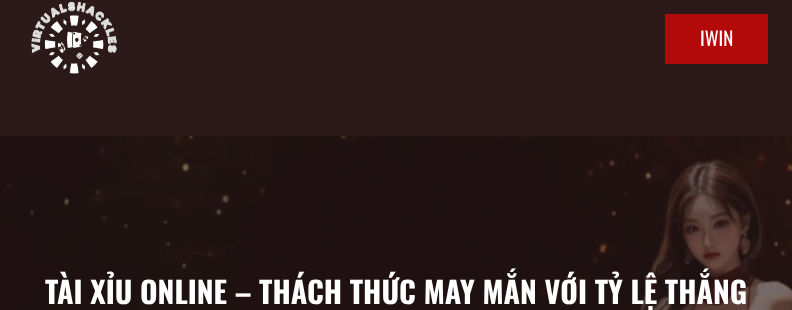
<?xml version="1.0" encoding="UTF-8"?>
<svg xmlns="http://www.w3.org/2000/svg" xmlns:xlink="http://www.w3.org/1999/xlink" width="792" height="310">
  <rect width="100%" height="100%" fill="#ffffff" />
  <rect width="792" height="136" fill="#2c1a1a" />
  <image x="31" y="1" width="86" height="73" xlink:href="image1.png" />
  <rect x="665" y="14" width="103" height="50" fill="#b30909" />
  <image x="0" y="136" width="792" height="174" xlink:href="image2.png" />
  <text x="700" y="46" style="font-family: Oswald; font-size: 19px; fill: #ffffff">IWIN</text>
  <text x="45" y="304" style="font-family: Oswald; font-size: 30px; font-weight: bold; fill: #ffffff">TÀI XỈU ONLINE – THÁCH THỨC MAY MẮN VỚI TỶ LỆ THẮNG</text>
</svg>
